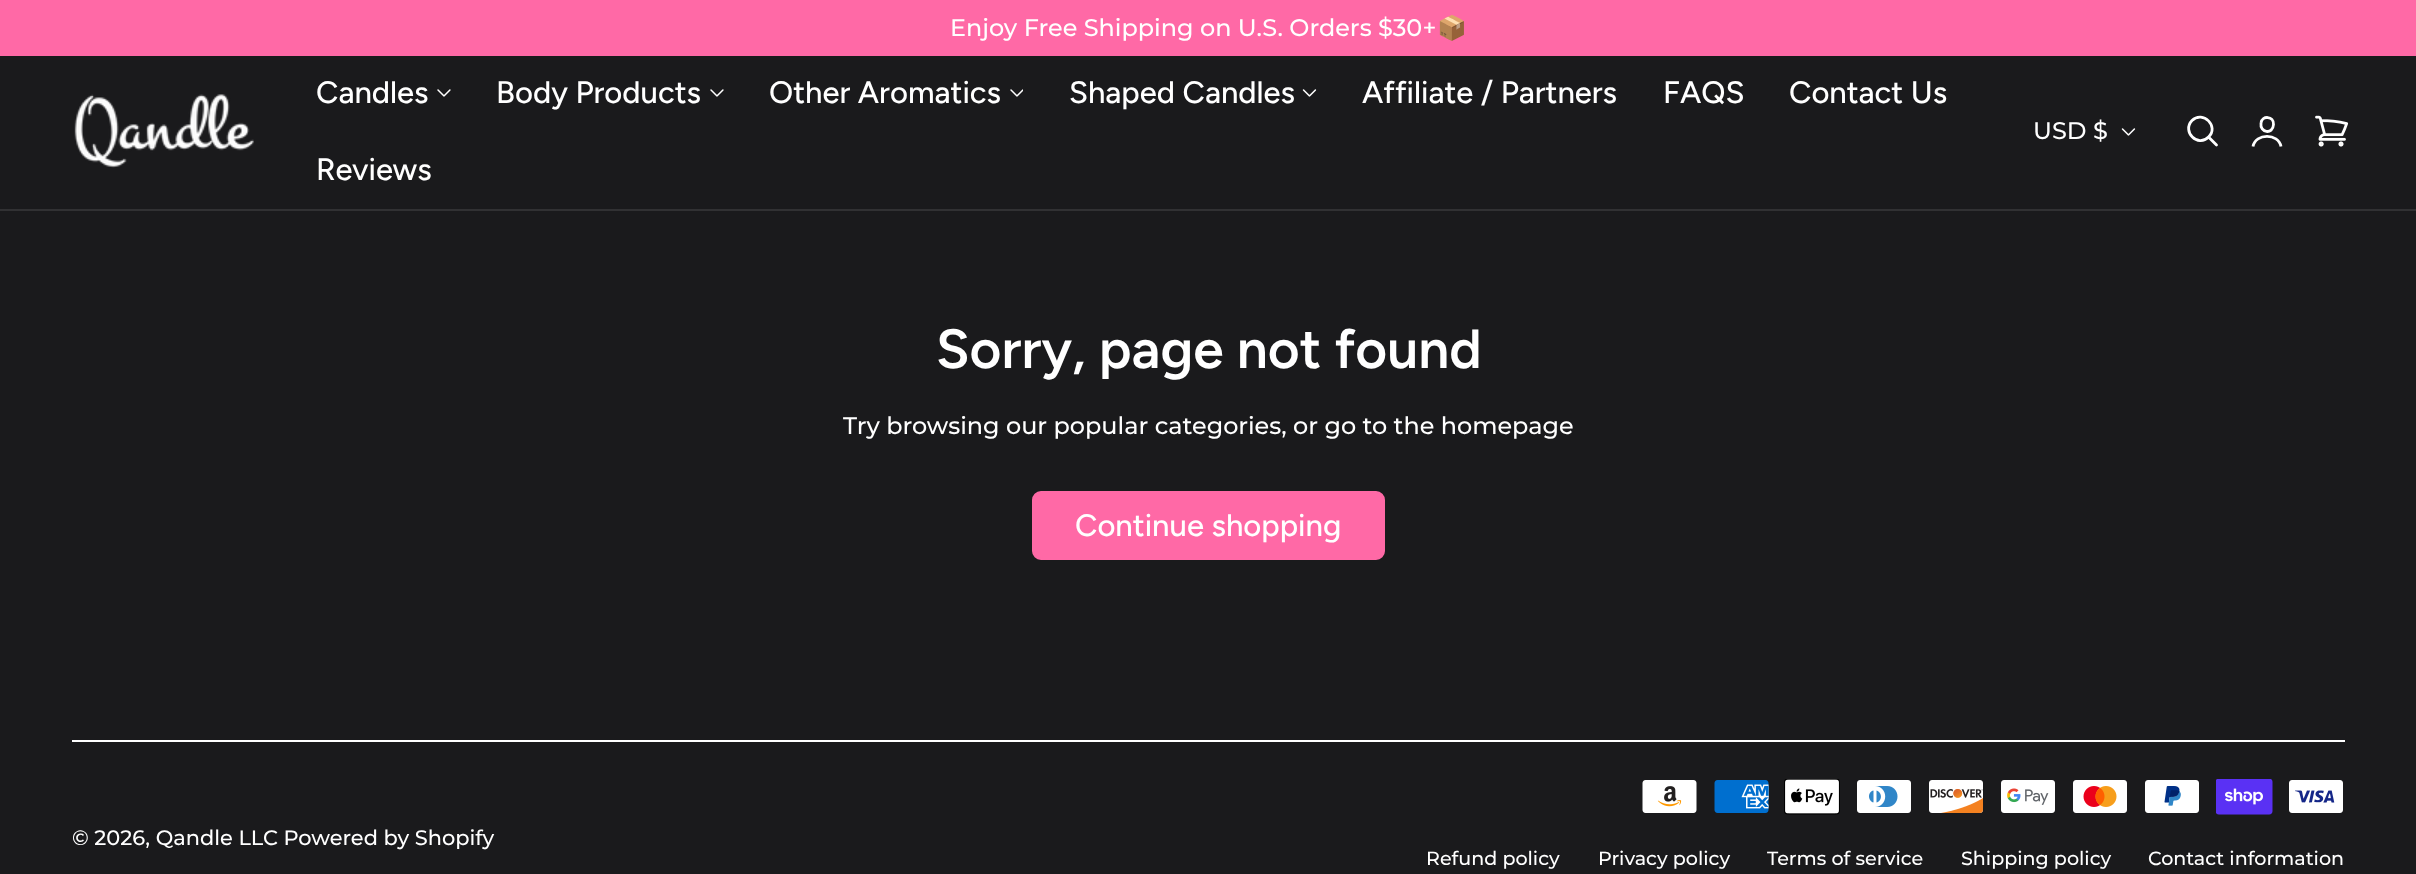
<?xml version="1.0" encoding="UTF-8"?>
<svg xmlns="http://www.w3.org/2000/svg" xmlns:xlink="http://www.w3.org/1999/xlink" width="2416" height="874">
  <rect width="100%" height="100%" fill="#1a1a1c" />
  <rect width="2416" height="56" fill="#ff69a6" />
  <rect y="209" width="2416" height="2" fill="#313133" />
  <image x="74" y="94" width="180" height="74" xlink:href="image1.png" />
  <image x="437" y="89" width="14" height="8" xlink:href="image2.png" />
  <image x="710" y="89" width="14" height="8" xlink:href="image2.png" />
  <image x="1010" y="89" width="13" height="8" xlink:href="image3.png" />
  <image x="1302" y="89" width="15" height="8" xlink:href="image4.png" />
  <image x="2121" y="128" width="15" height="8" xlink:href="image5.png" />
  <path d="M 2216.5 145 l -8 -8 m 0 0 c 11 -10.5 -5.5 -27 -16.5 -16.5 c -10.5 11 6 27.5 16.5 16.5 z" fill="none" stroke="#ffffff" stroke-width="2.8" stroke-linecap="round" stroke-linejoin="round" />
  <path d="M 2273.5 124.5 c -0.5 10.5 -14 8.5 -12.5 -1.5 c 1 -8 13 -7 12.5 1.5 z" fill="none" stroke="#ffffff" stroke-width="2.8" stroke-linecap="round" stroke-linejoin="round" />
  <path d="M 2253 146.5 c 2.5 -13.5 25.5 -13.5 28 0" fill="none" stroke="#ffffff" stroke-width="2.8" />
  <image x="2315" y="115" width="34" height="32" xlink:href="image6.png" />
  <rect x="1033" y="492" width="351" height="67" rx="8" fill="#ff69a6" stroke="#ff69a6" stroke-width="2" />
  <rect x="72" y="740" width="2273" height="2" fill="#ffffff" />
  <image x="1642" y="780" width="55" height="33" xlink:href="image7.png" />
  <image x="1714" y="780" width="55" height="33" xlink:href="image8.png" />
  <image x="1784" y="779" width="56" height="36" xlink:href="image9.png" />
  <image x="1857" y="780" width="54" height="33" xlink:href="image10.png" />
  <image x="1929" y="780" width="55" height="33" xlink:href="image11.png" />
  <image x="2001" y="780" width="54" height="33" xlink:href="image12.png" />
  <image x="2073" y="780" width="54" height="33" xlink:href="image13.png" />
  <image x="2145" y="780" width="54" height="33" xlink:href="image14.png" />
  <image x="2216" y="779" width="57" height="36" xlink:href="image15.png" />
  <image x="2289" y="780" width="54" height="33" xlink:href="image16.png" />
  <text x="950" y="36" style="font-family: Montserrat; font-size: 23.9px; font-weight: 500; fill: #ffffff">Enjoy Free Shipping on U.S. Orders $30+</text>
  <text x="1437" y="36" style="font-family: Noto Color Emoji; font-size: 23.9px; fill: #ffffff">📦</text>
  <text x="316" y="103" style="font-family: Figtree; font-size: 31px; font-weight: 500; fill: #ffffff">Candles</text>
  <text x="496" y="103" style="font-family: Figtree; font-size: 31px; font-weight: 500; fill: #ffffff">Body Products</text>
  <text x="769" y="103" style="font-family: Figtree; font-size: 31px; font-weight: 500; fill: #ffffff">Other Aromatics</text>
  <text x="1069" y="103" style="font-family: Figtree; font-size: 31px; font-weight: 500; fill: #ffffff">Shaped Candles</text>
  <text x="1362" y="103" style="font-family: Figtree; font-size: 31px; font-weight: 500; fill: #ffffff">Affiliate / Partners</text>
  <text x="1663" y="103" style="font-family: Figtree; font-size: 31px; font-weight: 500; fill: #ffffff">FAQS</text>
  <text x="1789" y="103" style="font-family: Figtree; font-size: 31px; font-weight: 500; fill: #ffffff">Contact Us</text>
  <text x="316" y="180" style="font-family: Figtree; font-size: 31px; font-weight: 500; fill: #ffffff">Reviews</text>
  <text x="2033" y="139" style="font-family: Montserrat; font-size: 23.9px; font-weight: 500; fill: #ffffff">USD $</text>
  <text x="936" y="368" style="font-family: Figtree; font-size: 55px; font-weight: 600; fill: #ffffff">Sorry, page not found</text>
  <text x="843" y="434" style="font-family: Montserrat; font-size: 23.9px; font-weight: 500; fill: #ffffff">Try browsing our popular categories, or go to the homepage</text>
  <text x="1075" y="536" style="font-family: Figtree; font-size: 31px; font-weight: 500; fill: #ffffff">Continue shopping</text>
  <text x="72" y="845" style="font-family: Montserrat; font-size: 20.9px; font-weight: 500; fill: #ffffff">© 2026, Qandle LLC Powered by Shopify</text>
  <text x="1426" y="865" style="font-family: Montserrat; font-size: 19.1px; font-weight: 500; fill: #ffffff">Refund policy</text>
  <text x="1598" y="865" style="font-family: Montserrat; font-size: 19.1px; font-weight: 500; fill: #ffffff">Privacy policy</text>
  <text x="1767" y="865" style="font-family: Montserrat; font-size: 19.1px; font-weight: 500; fill: #ffffff">Terms of service</text>
  <text x="1961" y="865" style="font-family: Montserrat; font-size: 19.1px; font-weight: 500; fill: #ffffff">Shipping policy</text>
  <text x="2148" y="865" style="font-family: Montserrat; font-size: 19.1px; font-weight: 500; fill: #ffffff">Contact information</text>
</svg>
